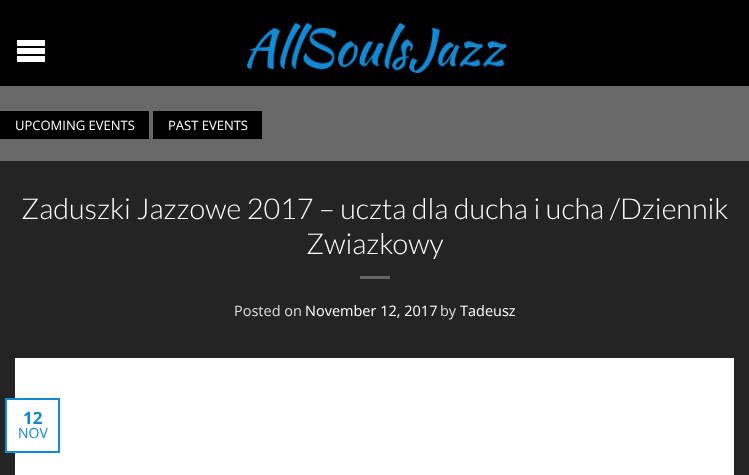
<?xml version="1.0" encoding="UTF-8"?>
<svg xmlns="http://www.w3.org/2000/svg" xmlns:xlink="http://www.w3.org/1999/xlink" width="749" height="475">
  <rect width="100%" height="100%" fill="#000000" />
  <image x="17" y="40" width="28" height="22" xlink:href="image1.png" />
  <image x="247" y="23" width="260" height="50" xlink:href="image2.png" />
  <rect y="161" width="749" height="314" fill="#242424" />
  <rect y="86" width="749" height="75" fill="#686868" />
  <rect y="111" width="149" height="28" fill="#000000" />
  <rect x="153" y="111" width="109" height="28" fill="#000000" />
  <rect x="360" y="276" width="30" height="3" fill="#666666" />
  <rect x="15" y="358" width="719" height="117" fill="#fefefe" />
  <rect x="7" y="400" width="8" height="51" fill="#ffffff" />
  <rect x="6" y="399" width="53" height="53" fill="none" stroke="#1389d3" stroke-width="2" />
  <text x="15" y="130" style="font-family: Open Sans; font-size: 13px; fill: #ffffff">UPCOMING EVENTS</text>
  <text x="168" y="130" style="font-family: Open Sans; font-size: 13px; fill: #ffffff">PAST EVENTS</text>
  <text x="21" y="219" style="font-family: Lato; font-size: 28.8px; font-weight: 300; fill: #ffffff">Zaduszki Jazzowe 2017 – uczta dla ducha i ucha /Dziennik</text>
  <text x="306" y="254" style="font-family: Lato; font-size: 28.8px; font-weight: 300; fill: #ffffff">Zwiazkowy</text>
  <text x="234" y="316" style="font-family: Open Sans; font-size: 14.5px; fill: #dddddd">Posted on</text>
  <text x="305" y="316" style="font-family: Open Sans; font-size: 14.5px; fill: #ffffff">November 12, 2017</text>
  <text x="440" y="316" style="font-family: Open Sans; font-size: 14.5px; fill: #dddddd">by</text>
  <text x="460" y="316" style="font-family: Open Sans; font-size: 14.5px; fill: #ffffff">Tadeusz</text>
  <text x="23" y="424" style="font-family: Open Sans; font-size: 17px; font-weight: bold; fill: #1389d3">12</text>
  <text x="18" y="438" style="font-family: Open Sans; font-size: 14px; fill: #1389d3">NOV</text>
</svg>
